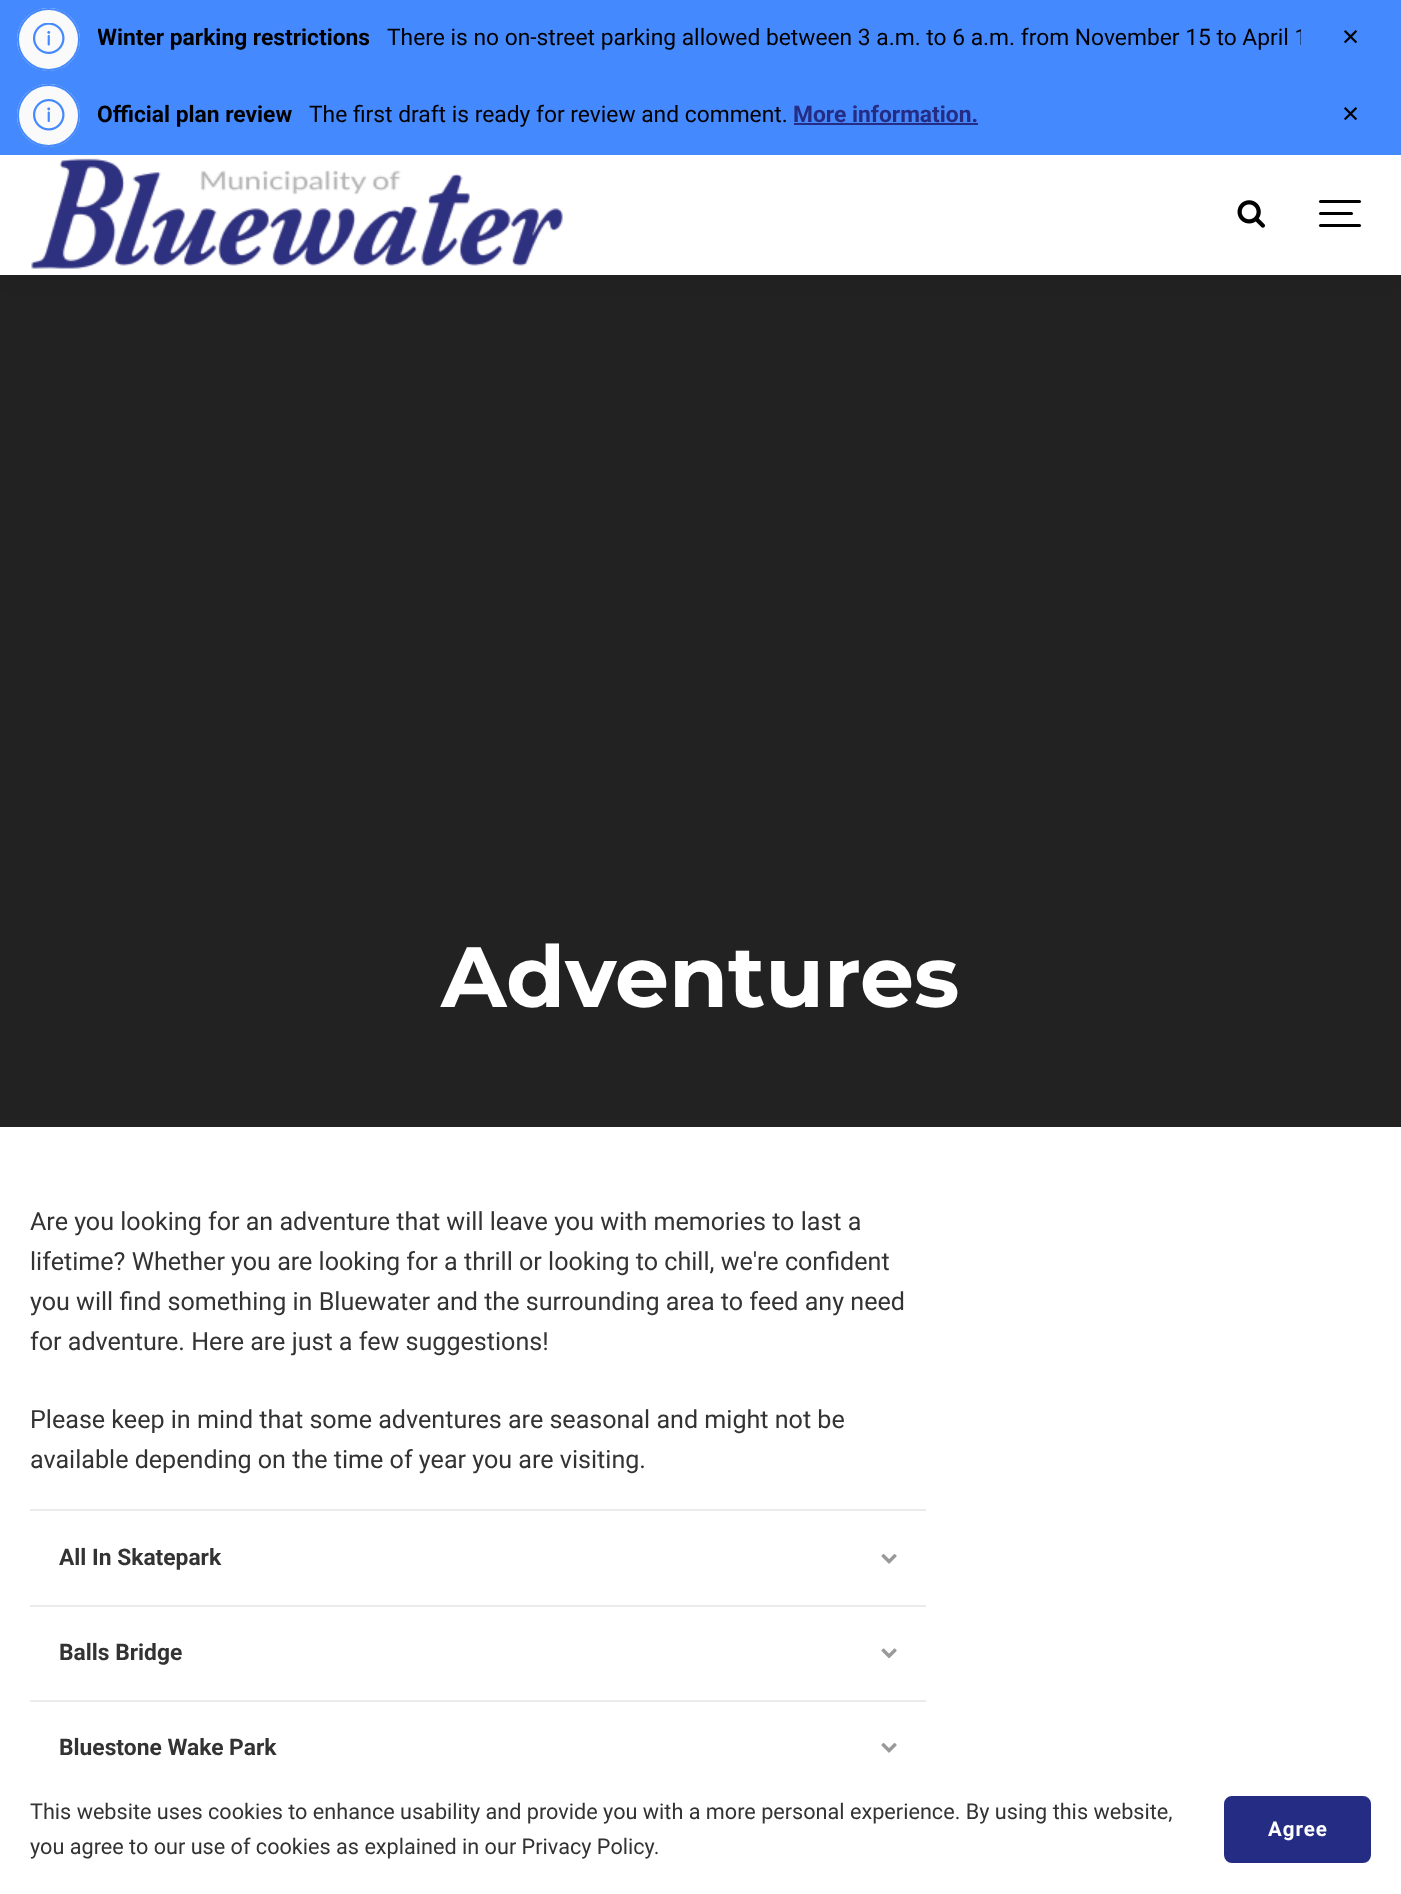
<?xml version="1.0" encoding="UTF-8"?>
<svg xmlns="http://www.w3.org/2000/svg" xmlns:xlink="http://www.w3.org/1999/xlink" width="1401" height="1894">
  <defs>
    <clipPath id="clip1"><rect x="98" y="23" width="273" height="31" /></clipPath>
    <clipPath id="clip2"><rect x="387" y="23" width="914" height="31" /></clipPath>
  </defs>
  <rect width="100%" height="100%" fill="#ffffff" />
  <rect y="275" width="1401" height="852" fill="#222222" />
  <rect width="1401" height="275" fill="#000000" fill-opacity="0.1" filter="blur(11px)" />
  <rect y="155" width="1401" height="120" fill="#ffffff" />
  <rect width="1401" height="155" fill="#4589ff" />
  <circle cx="48.5" cy="39.5" r="31.5" fill="#fafafa" />
  <image x="33" y="23" width="32" height="31" xlink:href="image1.png" />
  <circle cx="48.5" cy="39.5" r="30.5" fill="none" stroke="#4589ff" stroke-width="2" />
  <circle cx="48.5" cy="115.5" r="31.5" fill="#fafafa" />
  <image x="33" y="99" width="32" height="32" xlink:href="image2.png" />
  <circle cx="48.5" cy="115.5" r="30.5" fill="none" stroke="#4589ff" stroke-width="2" />
  <rect x="794" y="123" width="184" height="2" fill="#252c83" />
  <image x="31" y="158" width="532" height="111" xlink:href="image3.png" />
  <image x="1237" y="200" width="28" height="28" xlink:href="image4.png" />
  <rect x="1319" y="212" width="34" height="3" rx="1.5" fill="#000000" />
  <rect x="1319" y="200" width="42" height="3" rx="1.5" fill="#000000" />
  <rect x="1319" y="224" width="42" height="3" rx="1.5" fill="#000000" />
  <rect x="30" y="1509" width="896" height="2" fill="#ebebeb" />
  <rect x="30" y="1605" width="896" height="2" fill="#ebebeb" />
  <image x="881" y="1554" width="16" height="10" xlink:href="image5.png" />
  <rect x="30" y="1700" width="896" height="2" fill="#ebebeb" />
  <image x="881" y="1648" width="16" height="11" xlink:href="image6.png" />
  <image x="881" y="1743" width="16" height="10" xlink:href="image5.png" />
  <rect x="1225.5" y="1797.5" width="144" height="64" rx="6.5" fill="#252c83" stroke="#252c83" stroke-width="3" />
  <g clip-path="url(#clip1)">
    <text x="97" y="45" style="font-family: Roboto; font-size: 22.8px; font-weight: bold; fill: #000000">Winter parking restrictions</text>
  </g>
  <g clip-path="url(#clip2)">
    <text x="387" y="45" style="font-family: Roboto; font-size: 22.8px; fill: #000000">There is no on-street parking allowed between 3 a.m. to 6 a.m. from November 15 to April 1</text>
  </g>
  <text x="1341" y="45" style="font-family: DejaVu Sans; font-size: 22.8px; fill: #000000">✕</text>
  <text x="97" y="122" style="font-family: Roboto; font-size: 22.8px; font-weight: bold; fill: #000000">Official plan review</text>
  <text x="309" y="122" style="font-family: Roboto; font-size: 22.8px; fill: #000000">The first draft is ready for review and comment.</text>
  <text x="793" y="122" style="font-family: Roboto; font-size: 22.8px; font-weight: bold; fill: #252c83">More information.</text>
  <text x="1341" y="122" style="font-family: DejaVu Sans; font-size: 22.8px; fill: #000000">✕</text>
  <text x="441" y="1007" style="font-family: Montserrat; font-size: 85.5px; font-weight: bold; fill: #ffffff">Adventures</text>
  <text x="30" y="1230" style="font-family: Roboto; font-size: 25.1px; fill: #333333">Are you looking for an adventure that will leave you with memories to last a</text>
  <text x="30" y="1270" style="font-family: Roboto; font-size: 25.1px; fill: #333333">lifetime? Whether you are looking for a thrill or looking to chill, we're confident</text>
  <text x="30" y="1310" style="font-family: Roboto; font-size: 25.1px; fill: #333333">you will find something in Bluewater and the surrounding area to feed any need</text>
  <text x="30" y="1350" style="font-family: Roboto; font-size: 25.1px; fill: #333333">for adventure. Here are just a few suggestions!</text>
  <text x="30" y="1428" style="font-family: Roboto; font-size: 25.1px; fill: #333333">Please keep in mind that some adventures are seasonal and might not be</text>
  <text x="30" y="1468" style="font-family: Roboto; font-size: 25.1px; fill: #333333">available depending on the time of year you are visiting.</text>
  <text x="59" y="1565" style="font-family: Roboto; font-size: 22.8px; font-weight: bold; fill: #333333">All In Skatepark</text>
  <text x="59" y="1660" style="font-family: Roboto; font-size: 22.8px; font-weight: bold; fill: #333333">Balls Bridge</text>
  <text x="59" y="1755" style="font-family: Roboto; font-size: 22.8px; font-weight: bold; fill: #333333">Bluestone Wake Park</text>
  <text x="30" y="1819" style="font-family: Roboto; font-size: 21.65px; fill: #333333">This website uses cookies to enhance usability and provide you with a more personal experience. By using this website,</text>
  <text x="30" y="1854" style="font-family: Roboto; font-size: 21.65px; fill: #333333">you agree to our use of cookies as explained in our Privacy Policy.</text>
  <text x="1268" y="1836" style="font-family: Roboto; font-size: 20.5px; font-weight: bold; letter-spacing: 1px; fill: #ffffff">Agree</text>
</svg>
